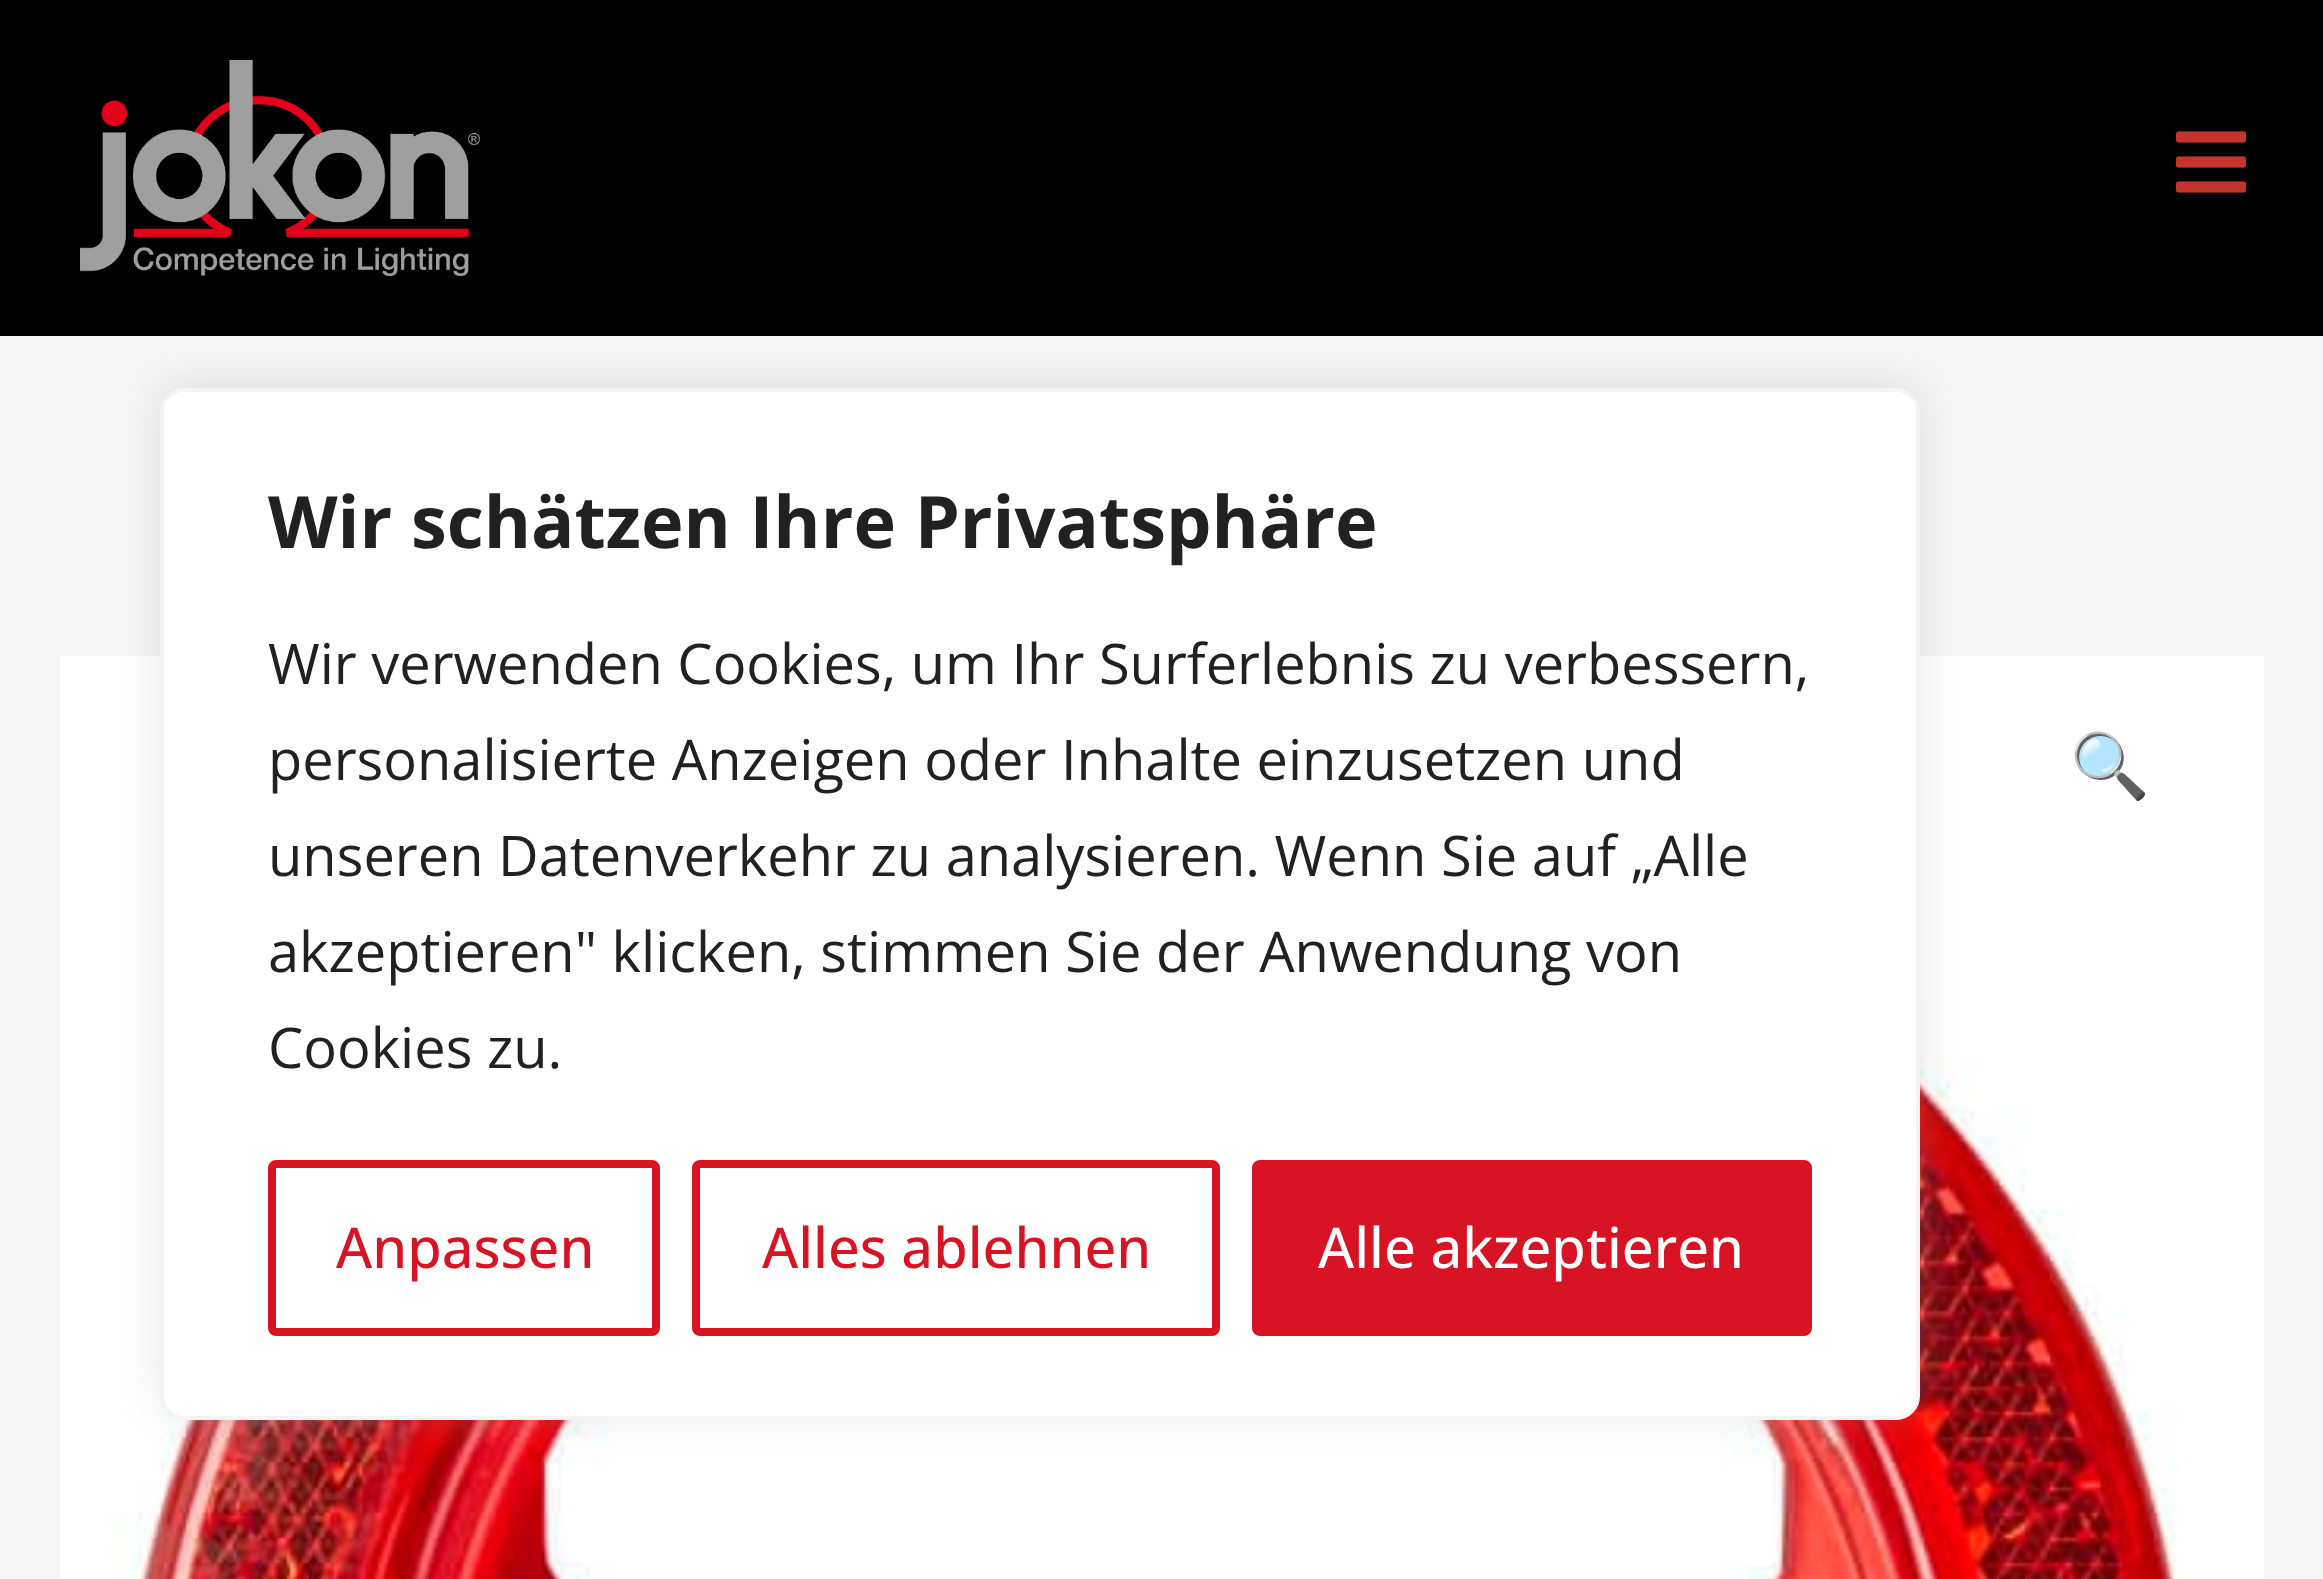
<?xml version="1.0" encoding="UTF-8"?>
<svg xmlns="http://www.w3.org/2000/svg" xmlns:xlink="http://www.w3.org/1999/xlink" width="2323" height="1579">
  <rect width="100%" height="100%" fill="#f5f5f5" />
  <rect width="2323" height="336" fill="#000000" />
  <image x="60" y="656" width="2204" height="923" xlink:href="image3.png" />
  <rect x="160" y="384" width="1760" height="1032" rx="24" fill="#acabab" fill-opacity="0.3" filter="blur(20px)" />
  <rect x="162" y="390" width="1756" height="1028" rx="22" fill="#ffffff" stroke="#f4f4f4" stroke-width="4" />
  <rect x="272" y="1164" width="384" height="168" rx="4" fill="none" stroke="#d81324" stroke-width="8" />
  <rect x="696" y="1164" width="520" height="168" rx="4" fill="none" stroke="#d81324" stroke-width="8" />
  <rect x="1256" y="1164" width="552" height="168" rx="4" fill="#d81324" stroke="#d81324" stroke-width="8" />
  <image x="80" y="60" width="400" height="216" xlink:href="image1.png" />
  <image x="2176" y="131" width="70" height="62" xlink:href="image2.png" />
  <text x="268" y="548" style="font-family: Open Sans; font-size: 72px; font-weight: bold; fill: #212121">Wir schätzen Ihre Privatsphäre</text>
  <text x="268" y="684" style="font-family: Open Sans; font-size: 56px; fill: #212121">Wir verwenden Cookies, um Ihr Surferlebnis zu verbessern,</text>
  <text x="268" y="780" style="font-family: Open Sans; font-size: 56px; fill: #212121">personalisierte Anzeigen oder Inhalte einzusetzen und</text>
  <text x="268" y="876" style="font-family: Open Sans; font-size: 56px; fill: #212121">unseren Datenverkehr zu analysieren. Wenn Sie auf „Alle</text>
  <text x="268" y="972" style="font-family: Open Sans; font-size: 56px; fill: #212121">akzeptieren" klicken, stimmen Sie der Anwendung von</text>
  <text x="268" y="1068" style="font-family: Open Sans; font-size: 56px; fill: #212121">Cookies zu.</text>
  <text x="336" y="1268" style="font-family: Open Sans; font-size: 56px; font-weight: 500; fill: #d81324">Anpassen</text>
  <text x="762" y="1268" style="font-family: Open Sans; font-size: 56px; font-weight: 500; fill: #d81324">Alles ablehnen</text>
  <text x="1318" y="1268" style="font-family: Open Sans; font-size: 56px; font-weight: 500; fill: #ffffff">Alle akzeptieren</text>
  <text x="2070" y="788" style="font-family: Noto Color Emoji; font-size: 64px; fill: #596277">🔍</text>
</svg>
